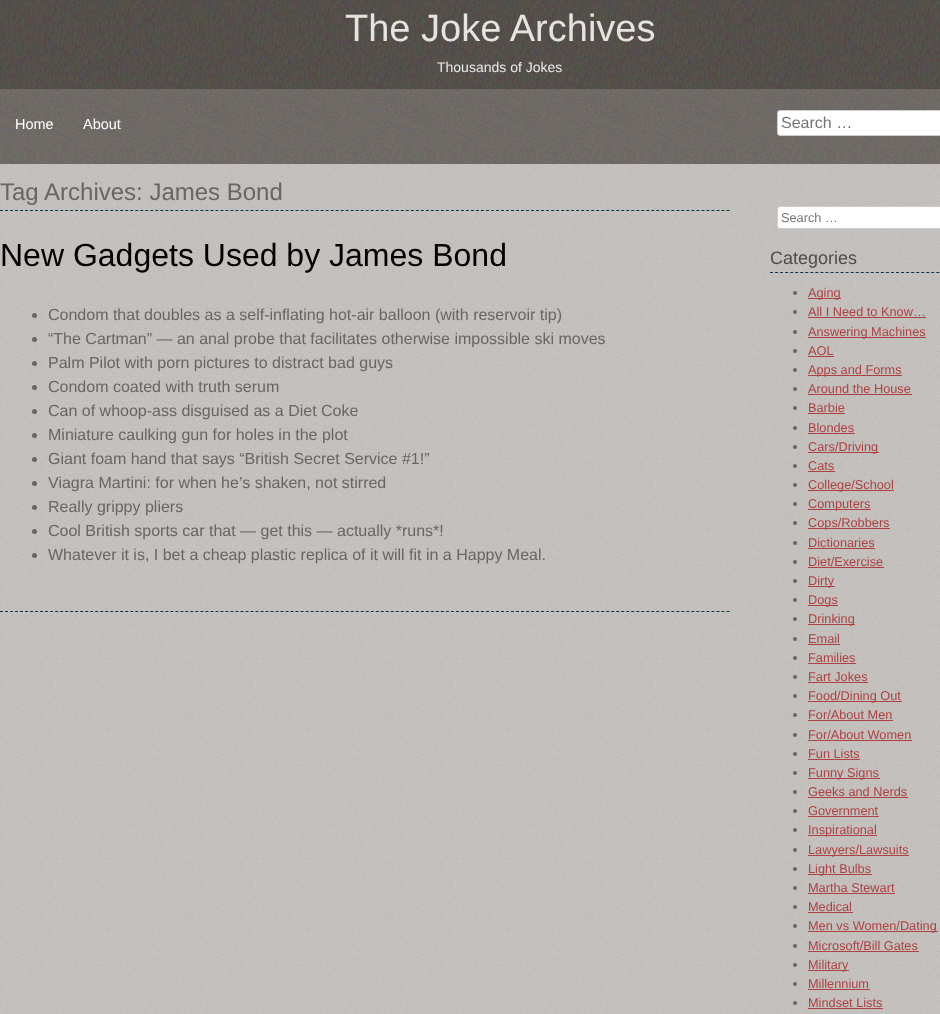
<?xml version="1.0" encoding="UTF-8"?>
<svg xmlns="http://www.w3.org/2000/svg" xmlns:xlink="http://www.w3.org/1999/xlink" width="940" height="1014">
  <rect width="100%" height="100%" fill="#e3ded9" />
  <image x="0" y="164" width="940" height="850" xlink:href="image1.png" />
  <image x="0" y="0" width="940" height="164" xlink:href="image2.png" />
  <rect x="777.5" y="110.5" width="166" height="25" rx="2.5" fill="#ffffff" stroke="#cccccc" />
  <path d="M 0 210.5 h 730" fill="none" stroke="#073648" stroke-dasharray="3 2.01" />
  <path d="M 0 611.5 h 730" fill="none" stroke="#073648" stroke-dasharray="3 2.01" />
  <circle cx="34.5" cy="315.5" r="2.5" fill="#666666" />
  <circle cx="34.5" cy="339.5" r="2.5" fill="#666666" />
  <circle cx="34.5" cy="363.5" r="2.5" fill="#666666" />
  <circle cx="34.5" cy="387.5" r="2.5" fill="#666666" />
  <circle cx="34.5" cy="411.5" r="2.5" fill="#666666" />
  <circle cx="34.5" cy="435.5" r="2.5" fill="#666666" />
  <circle cx="34.5" cy="459.5" r="2.5" fill="#666666" />
  <circle cx="34.5" cy="483.5" r="2.5" fill="#666666" />
  <circle cx="34.5" cy="507.5" r="2.5" fill="#666666" />
  <circle cx="34.5" cy="531.5" r="2.5" fill="#666666" />
  <circle cx="34.5" cy="555.5" r="2.5" fill="#666666" />
  <rect x="777.5" y="206.5" width="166" height="22" rx="2.5" fill="#ffffff" stroke="#cccccc" />
  <path d="M 770 272.5 h 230" fill="none" stroke="#073648" stroke-dasharray="3 2.04" />
  <circle cx="795" cy="293" r="2" fill="#666666" />
  <rect x="808" y="298" width="33" height="1" fill="#ac4242" />
  <circle cx="795" cy="312" r="2" fill="#666666" />
  <rect x="808" y="317" width="118" height="1" fill="#ac4242" />
  <circle cx="795" cy="332" r="2" fill="#666666" />
  <rect x="808" y="337" width="118" height="1" fill="#ac4242" />
  <circle cx="795" cy="351" r="2" fill="#666666" />
  <rect x="808" y="356" width="26" height="1" fill="#ac4242" />
  <circle cx="795" cy="370" r="2" fill="#666666" />
  <rect x="808" y="375" width="94" height="1" fill="#ac4242" />
  <circle cx="795" cy="389" r="2" fill="#666666" />
  <rect x="808" y="394" width="104" height="1" fill="#ac4242" />
  <circle cx="795" cy="408" r="2" fill="#666666" />
  <rect x="808" y="413" width="37" height="1" fill="#ac4242" />
  <circle cx="795" cy="428" r="2" fill="#666666" />
  <rect x="808" y="433" width="47" height="1" fill="#ac4242" />
  <circle cx="795" cy="447" r="2" fill="#666666" />
  <rect x="808" y="452" width="71" height="1" fill="#ac4242" />
  <circle cx="795" cy="466" r="2" fill="#666666" />
  <rect x="808" y="471" width="27" height="1" fill="#ac4242" />
  <circle cx="795" cy="485" r="2" fill="#666666" />
  <rect x="808" y="490" width="86" height="1" fill="#ac4242" />
  <circle cx="795" cy="504" r="2" fill="#666666" />
  <rect x="808" y="509" width="63" height="1" fill="#ac4242" />
  <circle cx="795" cy="523" r="2" fill="#666666" />
  <rect x="808" y="528" width="82" height="1" fill="#ac4242" />
  <circle cx="795" cy="543" r="2" fill="#666666" />
  <rect x="808" y="548" width="67" height="1" fill="#ac4242" />
  <circle cx="795" cy="562" r="2" fill="#666666" />
  <rect x="808" y="567" width="76" height="1" fill="#ac4242" />
  <circle cx="795" cy="581" r="2" fill="#666666" />
  <rect x="808" y="586" width="27" height="1" fill="#ac4242" />
  <circle cx="795" cy="600" r="2" fill="#666666" />
  <rect x="808" y="605" width="30" height="1" fill="#ac4242" />
  <circle cx="795" cy="619" r="2" fill="#666666" />
  <rect x="808" y="624" width="47" height="1" fill="#ac4242" />
  <circle cx="795" cy="639" r="2" fill="#666666" />
  <rect x="808" y="644" width="32" height="1" fill="#ac4242" />
  <circle cx="795" cy="658" r="2" fill="#666666" />
  <rect x="808" y="663" width="48" height="1" fill="#ac4242" />
  <circle cx="795" cy="677" r="2" fill="#666666" />
  <rect x="808" y="682" width="60" height="1" fill="#ac4242" />
  <circle cx="795" cy="696" r="2" fill="#666666" />
  <rect x="808" y="701" width="94" height="1" fill="#ac4242" />
  <circle cx="795" cy="715" r="2" fill="#666666" />
  <rect x="808" y="720" width="85" height="1" fill="#ac4242" />
  <circle cx="795" cy="735" r="2" fill="#666666" />
  <rect x="808" y="740" width="104" height="1" fill="#ac4242" />
  <circle cx="795" cy="754" r="2" fill="#666666" />
  <rect x="808" y="759" width="52" height="1" fill="#ac4242" />
  <circle cx="795" cy="773" r="2" fill="#666666" />
  <rect x="808" y="778" width="72" height="1" fill="#ac4242" />
  <circle cx="795" cy="792" r="2" fill="#666666" />
  <rect x="808" y="797" width="100" height="1" fill="#ac4242" />
  <circle cx="795" cy="811" r="2" fill="#666666" />
  <rect x="808" y="816" width="71" height="1" fill="#ac4242" />
  <circle cx="795" cy="830" r="2" fill="#666666" />
  <rect x="808" y="835" width="69" height="1" fill="#ac4242" />
  <circle cx="795" cy="850" r="2" fill="#666666" />
  <rect x="808" y="855" width="101" height="1" fill="#ac4242" />
  <circle cx="795" cy="869" r="2" fill="#666666" />
  <rect x="808" y="874" width="64" height="1" fill="#ac4242" />
  <circle cx="795" cy="888" r="2" fill="#666666" />
  <rect x="808" y="893" width="87" height="1" fill="#ac4242" />
  <circle cx="795" cy="907" r="2" fill="#666666" />
  <rect x="808" y="912" width="45" height="1" fill="#ac4242" />
  <circle cx="795" cy="926" r="2" fill="#666666" />
  <rect x="808" y="931" width="130" height="1" fill="#ac4242" />
  <circle cx="795" cy="946" r="2" fill="#666666" />
  <rect x="808" y="951" width="111" height="1" fill="#ac4242" />
  <circle cx="795" cy="965" r="2" fill="#666666" />
  <rect x="808" y="970" width="41" height="1" fill="#ac4242" />
  <circle cx="795" cy="984" r="2" fill="#666666" />
  <rect x="808" y="989" width="62" height="1" fill="#ac4242" />
  <circle cx="795" cy="1003" r="2" fill="#666666" />
  <rect x="808" y="1008" width="75" height="1" fill="#ac4242" />
  <text x="345" y="41" style="font-family: Liberation Sans; font-size: 38px; fill: #e6e4e1">The Joke Archives</text>
  <text x="437" y="72" style="font-family: Liberation Sans; font-size: 14px; fill: #ebebeb">Thousands of Jokes</text>
  <text x="15" y="129" style="font-family: Liberation Sans; font-size: 14.5px; fill: #ffffff">Home</text>
  <text x="83" y="129" style="font-family: Liberation Sans; font-size: 14.5px; fill: #ffffff">About</text>
  <text x="781" y="128" style="font-family: Liberation Sans; font-size: 16px; fill: #757575">Search …</text>
  <text x="0" y="200" style="font-family: Liberation Sans; font-size: 24px; fill: #666666">Tag Archives: James Bond</text>
  <text x="0" y="266" style="font-family: Liberation Sans; font-size: 32px; fill: #000000">New Gadgets Used by James Bond</text>
  <text x="48" y="320" style="font-family: Liberation Sans; font-size: 16px; fill: #666666">Condom that doubles as a self-inflating hot-air balloon (with reservoir tip)</text>
  <text x="48" y="344" style="font-family: Liberation Sans; font-size: 16px; fill: #666666">“The Cartman” — an anal probe that facilitates otherwise impossible ski moves</text>
  <text x="48" y="368" style="font-family: Liberation Sans; font-size: 16px; fill: #666666">Palm Pilot with porn pictures to distract bad guys</text>
  <text x="48" y="392" style="font-family: Liberation Sans; font-size: 16px; fill: #666666">Condom coated with truth serum</text>
  <text x="48" y="416" style="font-family: Liberation Sans; font-size: 16px; fill: #666666">Can of whoop-ass disguised as a Diet Coke</text>
  <text x="48" y="440" style="font-family: Liberation Sans; font-size: 16px; fill: #666666">Miniature caulking gun for holes in the plot</text>
  <text x="48" y="464" style="font-family: Liberation Sans; font-size: 16px; fill: #666666">Giant foam hand that says “British Secret Service #1!”</text>
  <text x="48" y="488" style="font-family: Liberation Sans; font-size: 16px; fill: #666666">Viagra Martini: for when he’s shaken, not stirred</text>
  <text x="48" y="512" style="font-family: Liberation Sans; font-size: 16px; fill: #666666">Really grippy pliers</text>
  <text x="48" y="536" style="font-family: Liberation Sans; font-size: 16px; fill: #666666">Cool British sports car that — get this — actually *runs*!</text>
  <text x="48" y="560" style="font-family: Liberation Sans; font-size: 16px; fill: #666666">Whatever it is, I bet a cheap plastic replica of it will fit in a Happy Meal.</text>
  <text x="781" y="222" style="font-family: Liberation Sans; font-size: 12.75px; fill: #757575">Search …</text>
  <text x="770" y="264" style="font-family: Liberation Sans; font-size: 18px; fill: #4f4d4a">Categories</text>
  <text x="808" y="297" style="font-family: Liberation Sans; font-size: 12.75px; fill: #ac4242">Aging</text>
  <text x="808" y="316" style="font-family: Liberation Sans; font-size: 12.75px; fill: #ac4242">All I Need to Know…</text>
  <text x="808" y="336" style="font-family: Liberation Sans; font-size: 12.75px; fill: #ac4242">Answering Machines</text>
  <text x="808" y="355" style="font-family: Liberation Sans; font-size: 12.75px; fill: #ac4242">AOL</text>
  <text x="808" y="374" style="font-family: Liberation Sans; font-size: 12.75px; fill: #ac4242">Apps and Forms</text>
  <text x="808" y="393" style="font-family: Liberation Sans; font-size: 12.75px; fill: #ac4242">Around the House</text>
  <text x="808" y="412" style="font-family: Liberation Sans; font-size: 12.75px; fill: #ac4242">Barbie</text>
  <text x="808" y="432" style="font-family: Liberation Sans; font-size: 12.75px; fill: #ac4242">Blondes</text>
  <text x="808" y="451" style="font-family: Liberation Sans; font-size: 12.75px; fill: #ac4242">Cars/Driving</text>
  <text x="808" y="470" style="font-family: Liberation Sans; font-size: 12.75px; fill: #ac4242">Cats</text>
  <text x="808" y="489" style="font-family: Liberation Sans; font-size: 12.75px; fill: #ac4242">College/School</text>
  <text x="808" y="508" style="font-family: Liberation Sans; font-size: 12.75px; fill: #ac4242">Computers</text>
  <text x="808" y="527" style="font-family: Liberation Sans; font-size: 12.75px; fill: #ac4242">Cops/Robbers</text>
  <text x="808" y="547" style="font-family: Liberation Sans; font-size: 12.75px; fill: #ac4242">Dictionaries</text>
  <text x="808" y="566" style="font-family: Liberation Sans; font-size: 12.75px; fill: #ac4242">Diet/Exercise</text>
  <text x="808" y="585" style="font-family: Liberation Sans; font-size: 12.75px; fill: #ac4242">Dirty</text>
  <text x="808" y="604" style="font-family: Liberation Sans; font-size: 12.75px; fill: #ac4242">Dogs</text>
  <text x="808" y="623" style="font-family: Liberation Sans; font-size: 12.75px; fill: #ac4242">Drinking</text>
  <text x="808" y="643" style="font-family: Liberation Sans; font-size: 12.75px; fill: #ac4242">Email</text>
  <text x="808" y="662" style="font-family: Liberation Sans; font-size: 12.75px; fill: #ac4242">Families</text>
  <text x="808" y="681" style="font-family: Liberation Sans; font-size: 12.75px; fill: #ac4242">Fart Jokes</text>
  <text x="808" y="700" style="font-family: Liberation Sans; font-size: 12.75px; fill: #ac4242">Food/Dining Out</text>
  <text x="808" y="719" style="font-family: Liberation Sans; font-size: 12.75px; fill: #ac4242">For/About Men</text>
  <text x="808" y="739" style="font-family: Liberation Sans; font-size: 12.75px; fill: #ac4242">For/About Women</text>
  <text x="808" y="758" style="font-family: Liberation Sans; font-size: 12.75px; fill: #ac4242">Fun Lists</text>
  <text x="808" y="777" style="font-family: Liberation Sans; font-size: 12.75px; fill: #ac4242">Funny Signs</text>
  <text x="808" y="796" style="font-family: Liberation Sans; font-size: 12.75px; fill: #ac4242">Geeks and Nerds</text>
  <text x="808" y="815" style="font-family: Liberation Sans; font-size: 12.75px; fill: #ac4242">Government</text>
  <text x="808" y="834" style="font-family: Liberation Sans; font-size: 12.75px; fill: #ac4242">Inspirational</text>
  <text x="808" y="854" style="font-family: Liberation Sans; font-size: 12.75px; fill: #ac4242">Lawyers/Lawsuits</text>
  <text x="808" y="873" style="font-family: Liberation Sans; font-size: 12.75px; fill: #ac4242">Light Bulbs</text>
  <text x="808" y="892" style="font-family: Liberation Sans; font-size: 12.75px; fill: #ac4242">Martha Stewart</text>
  <text x="808" y="911" style="font-family: Liberation Sans; font-size: 12.75px; fill: #ac4242">Medical</text>
  <text x="808" y="930" style="font-family: Liberation Sans; font-size: 12.75px; fill: #ac4242">Men vs Women/Dating</text>
  <text x="808" y="950" style="font-family: Liberation Sans; font-size: 12.75px; fill: #ac4242">Microsoft/Bill Gates</text>
  <text x="808" y="969" style="font-family: Liberation Sans; font-size: 12.75px; fill: #ac4242">Military</text>
  <text x="808" y="988" style="font-family: Liberation Sans; font-size: 12.75px; fill: #ac4242">Millennium</text>
  <text x="808" y="1007" style="font-family: Liberation Sans; font-size: 12.75px; fill: #ac4242">Mindset Lists</text>
</svg>
